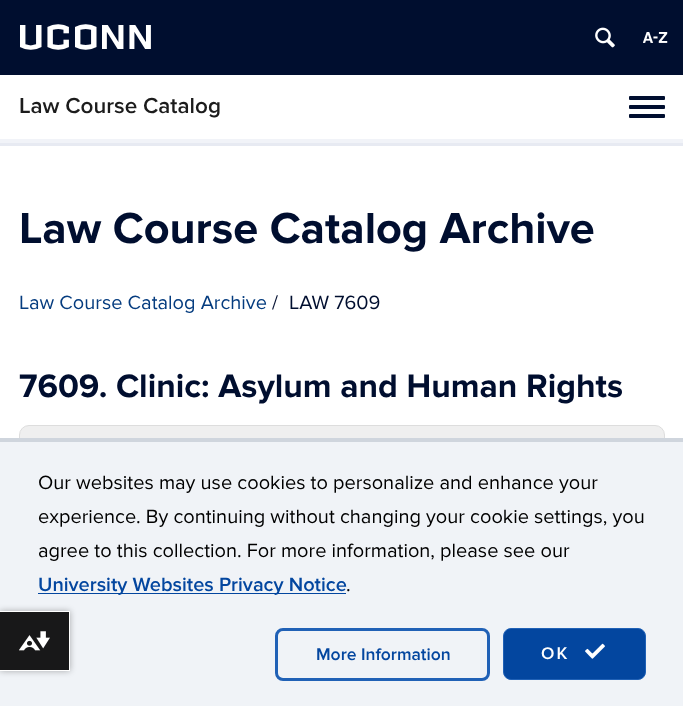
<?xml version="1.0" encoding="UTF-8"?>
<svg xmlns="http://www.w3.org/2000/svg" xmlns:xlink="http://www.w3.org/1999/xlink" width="683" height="706">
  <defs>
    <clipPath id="clip1"><path d="M 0 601 h 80 v 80 h -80 z m 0 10 h 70 v 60 h -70 z" clip-rule="evenodd" /></clipPath>
  </defs>
  <rect width="100%" height="100%" fill="#ffffff" />
  <rect width="683" height="75" fill="#000e2f" />
  <image x="595" y="27" width="20" height="21" xlink:href="image1.png" />
  <image x="643" y="32" width="25" height="11" xlink:href="image2.png" />
  <rect x="629" y="96" width="36" height="4" rx="1" fill="#000e2f" />
  <rect x="629" y="105" width="36" height="4" rx="1" fill="#000e2f" />
  <rect x="629" y="114" width="36" height="4" rx="1" fill="#000e2f" />
  <rect y="139" width="683" height="4" fill="#f1f3f8" />
  <rect y="143" width="683" height="3" fill="#e7eaf2" />
  <rect x="19.5" y="425.5" width="645" height="79" rx="9.5" fill="#efefef" stroke="#dddddd" />
  <rect y="442" width="683" height="264" fill="#f0f3f7" />
  <rect y="438" width="683" height="4" fill="#cfd5dd" />
  <rect x="38" y="593" width="308" height="1" fill="#03469f" />
  <rect x="276.5" y="629.5" width="212" height="50" rx="6.5" fill="none" stroke="#2061b6" stroke-width="3" />
  <rect x="503.5" y="628.5" width="142" height="51" rx="7.5" fill="#03469f" stroke="#2061b6" />
  <image x="585" y="643" width="20" height="16" xlink:href="image3.png" />
  <g clip-path="url(#clip1)">
    <rect y="611" width="70" height="60" fill="#000000" fill-opacity="0.3" filter="blur(3px)" />
  </g>
  <rect y="612" width="69" height="58" fill="#000000" fill-opacity="0.9" />
  <rect y="611" width="70" height="1" fill="#ffffff" />
  <rect x="69" y="611" width="1" height="60" fill="#ffffff" />
  <rect y="670" width="70" height="1" fill="#ffffff" />
  <image x="19" y="631" width="31" height="20" xlink:href="image4.png" />
  <text x="20" y="49" style="font-family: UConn; font-size: 40px; letter-spacing: 3.75px; fill: #ffffff">UCONN</text>
  <text x="19" y="113" style="font-family: Proxima Nova; font-size: 22.5px; font-weight: 600; fill: #1c1c1c">Law Course Catalog</text>
  <text x="19" y="243" style="font-family: Proxima Nova; font-size: 45px; font-weight: bold; fill: #000e2f">Law Course Catalog Archive</text>
  <text x="19" y="309" style="font-family: Proxima Nova; font-size: 20px; fill: #053c7f">Law Course Catalog Archive</text>
  <text x="272" y="309" style="font-family: Proxima Nova; font-size: 20px; fill: #000e2f">/</text>
  <text x="289" y="309" style="font-family: Proxima Nova; font-size: 20px; fill: #000e2f">LAW 7609</text>
  <text x="19" y="397" style="font-family: Proxima Nova; font-size: 33.75px; font-weight: bold; fill: #000e2f">7609. Clinic: Asylum and Human Rights</text>
  <text x="38" y="489" style="font-family: Proxima Nova; font-size: 20px; fill: #000000">Our websites may use cookies to personalize and enhance your</text>
  <text x="38" y="523" style="font-family: Proxima Nova; font-size: 20px; fill: #000000">experience. By continuing without changing your cookie settings, you</text>
  <text x="38" y="557" style="font-family: Proxima Nova; font-size: 20px; fill: #000000">agree to this collection. For more information, please see our</text>
  <text x="38" y="591" style="font-family: Proxima Nova; font-size: 20px; font-weight: 600; fill: #03469f">University Websites Privacy Notice</text>
  <text x="346" y="591" style="font-family: Proxima Nova; font-size: 20px; fill: #000000">.</text>
  <text x="316" y="660" style="font-family: Proxima Nova; font-size: 17.5px; font-weight: 600; fill: #03469f">More Information</text>
  <text x="541" y="659" style="font-family: Proxima Nova; font-size: 17.5px; font-weight: 600; letter-spacing: 2px; fill: #ffffff">OK</text>
</svg>
